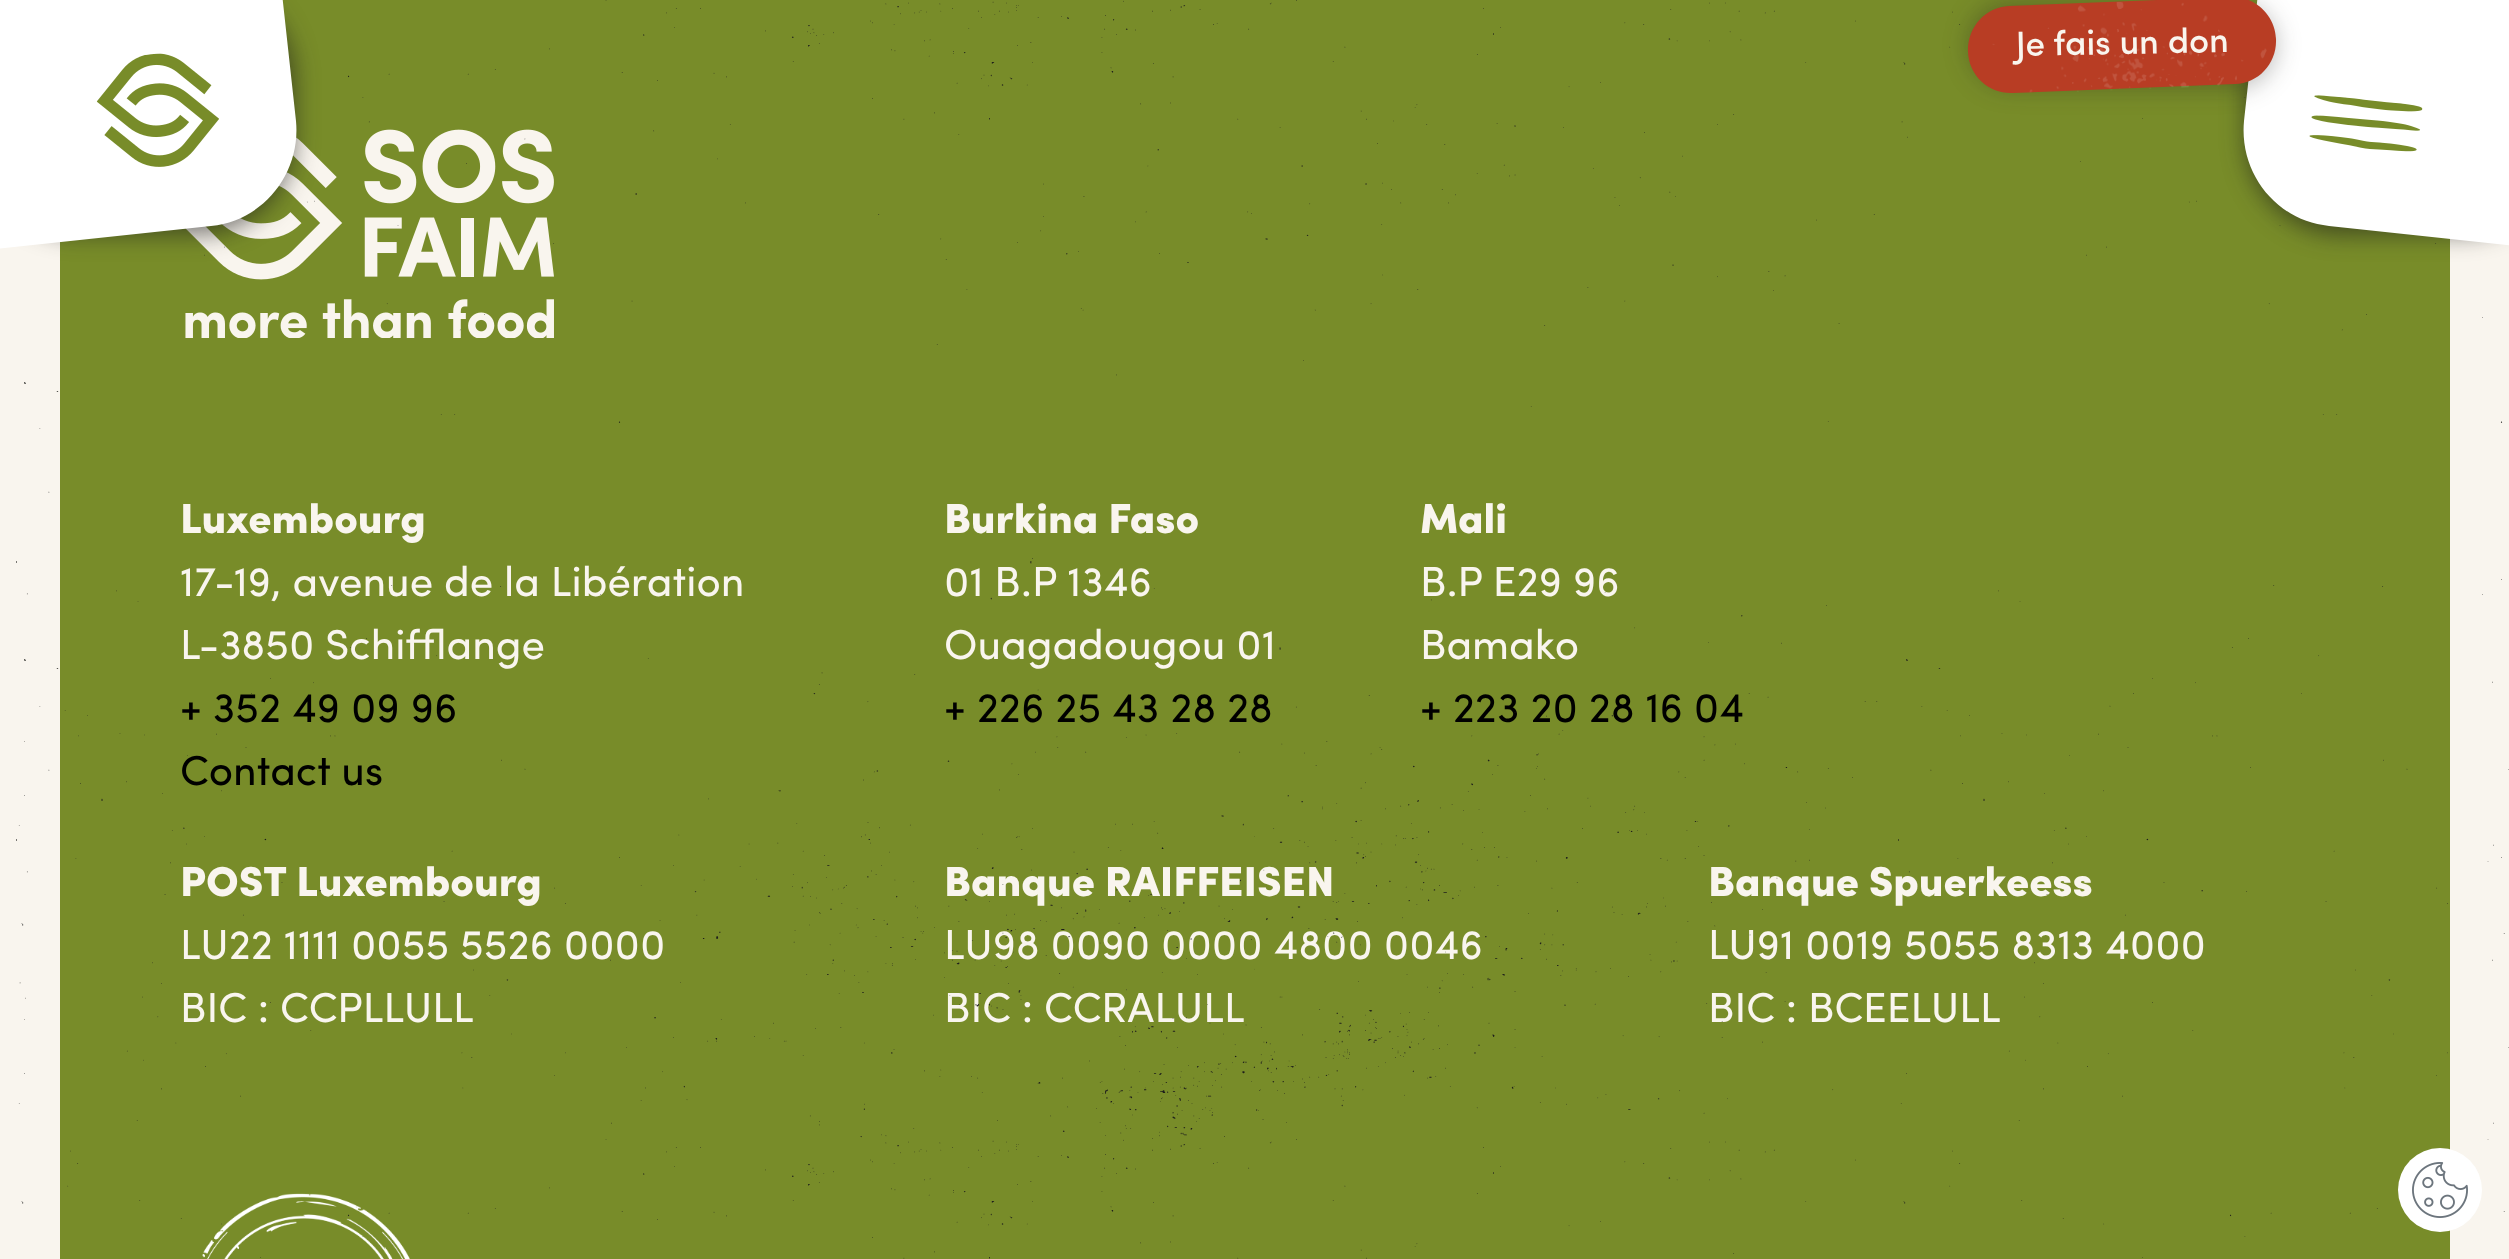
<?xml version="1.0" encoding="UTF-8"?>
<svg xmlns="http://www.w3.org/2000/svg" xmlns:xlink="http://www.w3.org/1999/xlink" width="2509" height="1259">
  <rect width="100%" height="100%" fill="#f9f5ee" />
  <image x="16" y="317" width="2493" height="682" xlink:href="image1.png" />
  <rect x="60" width="2390" height="1259" fill="#788c29" />
  <image x="185" y="129" width="369" height="209" xlink:href="image6.png" />
  <image x="202" y="1193" width="208" height="66" xlink:href="image7.png" />
  <text x="180" y="533" style="font-family: Sofia; font-size: 42px; font-weight: 900; fill: #f9f5ee">Luxembourg</text>
  <text x="180" y="596" style="font-family: Sofia; font-size: 42px; fill: #f9f5ee">17-19, avenue de la Libération</text>
  <text x="180" y="659" style="font-family: Sofia; font-size: 42px; fill: #f9f5ee">L-3850 Schifflange</text>
  <text x="180" y="722" style="font-family: Sofia; font-size: 42px; fill: #000000">+ 352 49 09 96</text>
  <text x="180" y="785" style="font-family: Sofia; font-size: 42px; fill: #000000">Contact us</text>
  <text x="944" y="533" style="font-family: Sofia; font-size: 42px; font-weight: 900; fill: #f9f5ee">Burkina Faso</text>
  <text x="944" y="596" style="font-family: Sofia; font-size: 42px; fill: #f9f5ee">01 B.P 1346</text>
  <text x="944" y="659" style="font-family: Sofia; font-size: 42px; fill: #f9f5ee">Ouagadougou 01</text>
  <text x="944" y="722" style="font-family: Sofia; font-size: 42px; fill: #000000">+ 226 25 43 28 28</text>
  <text x="1420" y="533" style="font-family: Sofia; font-size: 42px; font-weight: 900; fill: #f9f5ee">Mali</text>
  <text x="1420" y="596" style="font-family: Sofia; font-size: 42px; fill: #f9f5ee">B.P E29 96</text>
  <text x="1420" y="659" style="font-family: Sofia; font-size: 42px; fill: #f9f5ee">Bamako</text>
  <text x="1420" y="722" style="font-family: Sofia; font-size: 42px; fill: #000000">+ 223 20 28 16 04</text>
  <text x="180" y="896" style="font-family: Sofia; font-size: 42px; font-weight: 900; fill: #f9f5ee">POST Luxembourg</text>
  <text x="180" y="959" style="font-family: Sofia; font-size: 42px; fill: #f9f5ee">LU22 1111 0055 5526 0000</text>
  <text x="180" y="1022" style="font-family: Sofia; font-size: 42px; fill: #f9f5ee">BIC : CCPLLULL</text>
  <text x="944" y="896" style="font-family: Sofia; font-size: 42px; font-weight: 900; fill: #f9f5ee">Banque RAIFFEISEN</text>
  <text x="944" y="959" style="font-family: Sofia; font-size: 42px; fill: #f9f5ee">LU98 0090 0000 4800 0046</text>
  <text x="944" y="1022" style="font-family: Sofia; font-size: 42px; fill: #f9f5ee">BIC : CCRALULL</text>
  <text x="1708" y="896" style="font-family: Sofia; font-size: 42px; font-weight: 900; fill: #f9f5ee">Banque Spuerkeess</text>
  <text x="1708" y="959" style="font-family: Sofia; font-size: 42px; fill: #f9f5ee">LU91 0019 5055 8313 4000</text>
  <text x="1708" y="1022" style="font-family: Sofia; font-size: 42px; fill: #f9f5ee">BIC : BCEELULL</text>
  <image x="16" y="0" width="2493" height="1259" xlink:href="image5.png" />
  <rect x="-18" y="-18" width="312" height="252" rx="96" fill="#1d1d1b" fill-opacity="0.6" filter="blur(12px)" />
  <path d="M -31 -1 l 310 -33 l 17 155 c 5 53 -33 100 -85 105 l -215 23 z" fill="#ffffff" />
  <image x="96" y="53" width="123" height="114" xlink:href="image2.png" />
  <rect x="2246" y="-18" width="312" height="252" rx="96" fill="#1d1d1b" fill-opacity="0.6" filter="blur(12px)" />
  <path d="M 2261 -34 l 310 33 l -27 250 l -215 -23 c -52 -5 -90 -52 -85 -105 z" fill="#ffffff" />
  <image x="2309" y="95" width="114" height="57" xlink:href="image4.png" />
  <rect x="1968" y="2" width="308" height="86" rx="43" fill="#1d1d1b" fill-opacity="0.3" filter="blur(12px)" />
  <path d="M 2009 6 l 222 -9 c 24 -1 44 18 45 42 c 1 24 -17 44 -41 45 l -222 9 c -24 1 -44 -17 -45 -41 c -1 -24 17 -45 41 -46 z" fill="#b83d24" />
  <image x="1992" y="2" width="284" height="91" xlink:href="image3.png" />
  <text x="2016" y="56" transform="rotate(-1.1 2016 56)" style="font-family: Sofia; font-size: 35px; font-weight: 500; fill: #f9f5ee">Je fais un don</text>
  <circle cx="2440" cy="1190" r="42" fill="#ffffff" />
  <image x="2412" y="1162" width="56" height="56" xlink:href="image8.png" />
</svg>
